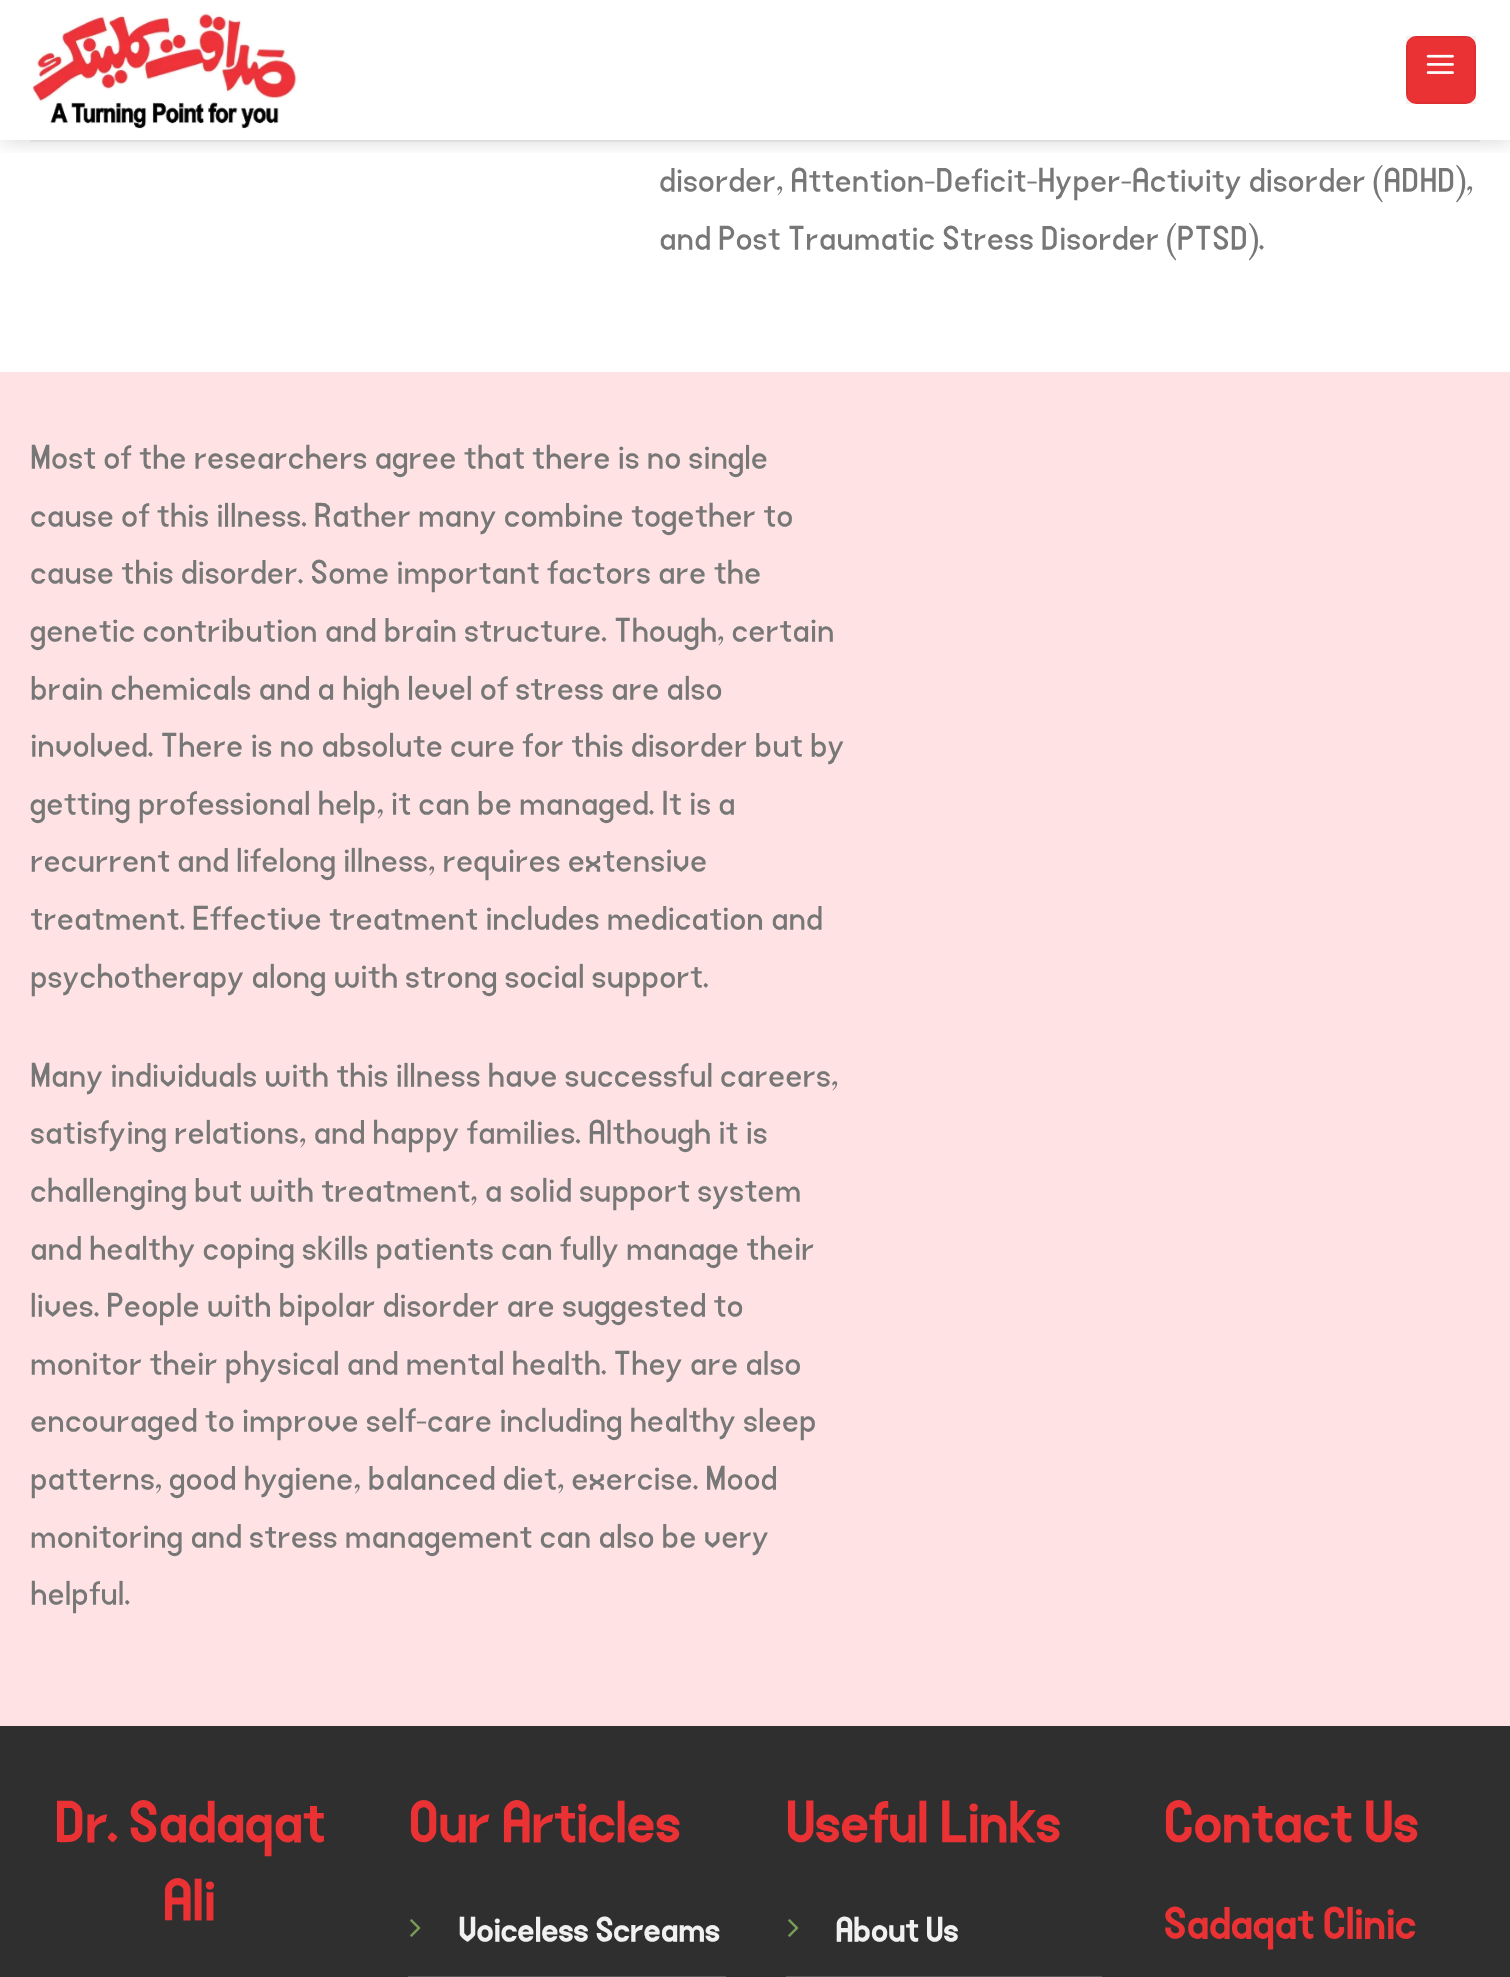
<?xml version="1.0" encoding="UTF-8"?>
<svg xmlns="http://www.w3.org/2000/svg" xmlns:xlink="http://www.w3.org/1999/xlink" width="1510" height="1977">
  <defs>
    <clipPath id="clip1"><rect x="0" y="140" width="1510" height="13" /></clipPath>
  </defs>
  <rect width="100%" height="100%" fill="#ffffff" />
  <g clip-path="url(#clip1)">
    <rect x="2" y="2" width="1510" height="140" fill="#000000" fill-opacity="0.15" filter="blur(10px)" />
  </g>
  <image x="31" y="12" width="267" height="117" xlink:href="image1.png" />
  <rect x="1406" y="36" width="70" height="68" rx="10" fill="#ea3235" />
  <rect x="1407" y="37" width="68" height="66" fill="none" stroke="#000000" stroke-opacity="0.05" stroke-width="2" />
  <image x="1426" y="54" width="28" height="20" xlink:href="image2.png" />
  <rect x="30" y="140" width="1450" height="2" fill="#777777" fill-opacity="0.1" />
  <rect y="372" width="1510" height="1354" fill="#ffe3e4" />
  <rect y="1726" width="1510" height="251" fill="#2f2f2f" />
  <rect x="408" y="1976" width="318" height="1" fill="#595959" />
  <image x="410" y="1919" width="11" height="18" xlink:href="image3.png" />
  <rect x="786" y="1976" width="316" height="1" fill="#595959" />
  <image x="788" y="1919" width="11" height="18" xlink:href="image3.png" />
  <text x="659" y="188" style="font-family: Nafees; font-size: 36px; fill: #777777">disorder, Attention-Deficit-Hyper-Activity disorder (ADHD),</text>
  <text x="659" y="246" style="font-family: Nafees; font-size: 36px; fill: #777777">and Post Traumatic Stress Disorder (PTSD).</text>
  <text x="30" y="465" style="font-family: Nafees; font-size: 36px; fill: #777777">Most of the researchers agree that there is no single</text>
  <text x="30" y="523" style="font-family: Nafees; font-size: 36px; fill: #777777">cause of this illness. Rather many combine together to</text>
  <text x="30" y="580" style="font-family: Nafees; font-size: 36px; fill: #777777">cause this disorder. Some important factors are the</text>
  <text x="30" y="638" style="font-family: Nafees; font-size: 36px; fill: #777777">genetic contribution and brain structure. Though, certain</text>
  <text x="30" y="696" style="font-family: Nafees; font-size: 36px; fill: #777777">brain chemicals and a high level of stress are also</text>
  <text x="30" y="753" style="font-family: Nafees; font-size: 36px; fill: #777777">involved. There is no absolute cure for this disorder but by</text>
  <text x="30" y="811" style="font-family: Nafees; font-size: 36px; fill: #777777">getting professional help, it can be managed. It is a</text>
  <text x="30" y="868" style="font-family: Nafees; font-size: 36px; fill: #777777">recurrent and lifelong illness, requires extensive</text>
  <text x="30" y="926" style="font-family: Nafees; font-size: 36px; fill: #777777">treatment. Effective treatment includes medication and</text>
  <text x="30" y="984" style="font-family: Nafees; font-size: 36px; fill: #777777">psychotherapy along with strong social support.</text>
  <text x="30" y="1083" style="font-family: Nafees; font-size: 36px; fill: #777777">Many individuals with this illness have successful careers,</text>
  <text x="30" y="1140" style="font-family: Nafees; font-size: 36px; fill: #777777">satisfying relations, and happy families. Although it is</text>
  <text x="30" y="1198" style="font-family: Nafees; font-size: 36px; fill: #777777">challenging but with treatment, a solid support system</text>
  <text x="30" y="1256" style="font-family: Nafees; font-size: 36px; fill: #777777">and healthy coping skills patients can fully manage their</text>
  <text x="30" y="1313" style="font-family: Nafees; font-size: 36px; fill: #777777">lives. People with bipolar disorder are suggested to</text>
  <text x="30" y="1371" style="font-family: Nafees; font-size: 36px; fill: #777777">monitor their physical and mental health. They are also</text>
  <text x="30" y="1428" style="font-family: Nafees; font-size: 36px; fill: #777777">encouraged to improve self-care including healthy sleep</text>
  <text x="30" y="1486" style="font-family: Nafees; font-size: 36px; fill: #777777">patterns, good hygiene, balanced diet, exercise. Mood</text>
  <text x="30" y="1544" style="font-family: Nafees; font-size: 36px; fill: #777777">monitoring and stress management can also be very</text>
  <text x="30" y="1601" style="font-family: Nafees; font-size: 36px; fill: #777777">helpful.</text>
  <text x="54" y="1836" style="font-family: Nafees; font-size: 60px; font-weight: bold; fill: #ea3235">Dr. Sadaqat</text>
  <text x="162" y="1914" style="font-family: Nafees; font-size: 60px; font-weight: bold; fill: #ea3235">Ali</text>
  <text x="408" y="1836" style="font-family: Nafees; font-size: 60px; font-weight: bold; fill: #ea3235">Our Articles</text>
  <text x="458" y="1938" style="font-family: Nafees; font-size: 36px; font-weight: bold; fill: #f1f1f1">Voiceless Screams</text>
  <text x="785" y="1836" style="font-family: Nafees; font-size: 60px; font-weight: bold; fill: #ea3235">Useful Links</text>
  <text x="835" y="1938" style="font-family: Nafees; font-size: 36px; font-weight: bold; fill: #f1f1f1">About Us</text>
  <text x="1163" y="1836" style="font-family: Nafees; font-size: 60px; font-weight: bold; fill: #ea3235">Contact Us</text>
  <text x="1163" y="1934" style="font-family: Nafees; font-size: 46px; font-weight: bold; fill: #ea3235">Sadaqat Clinic</text>
</svg>
